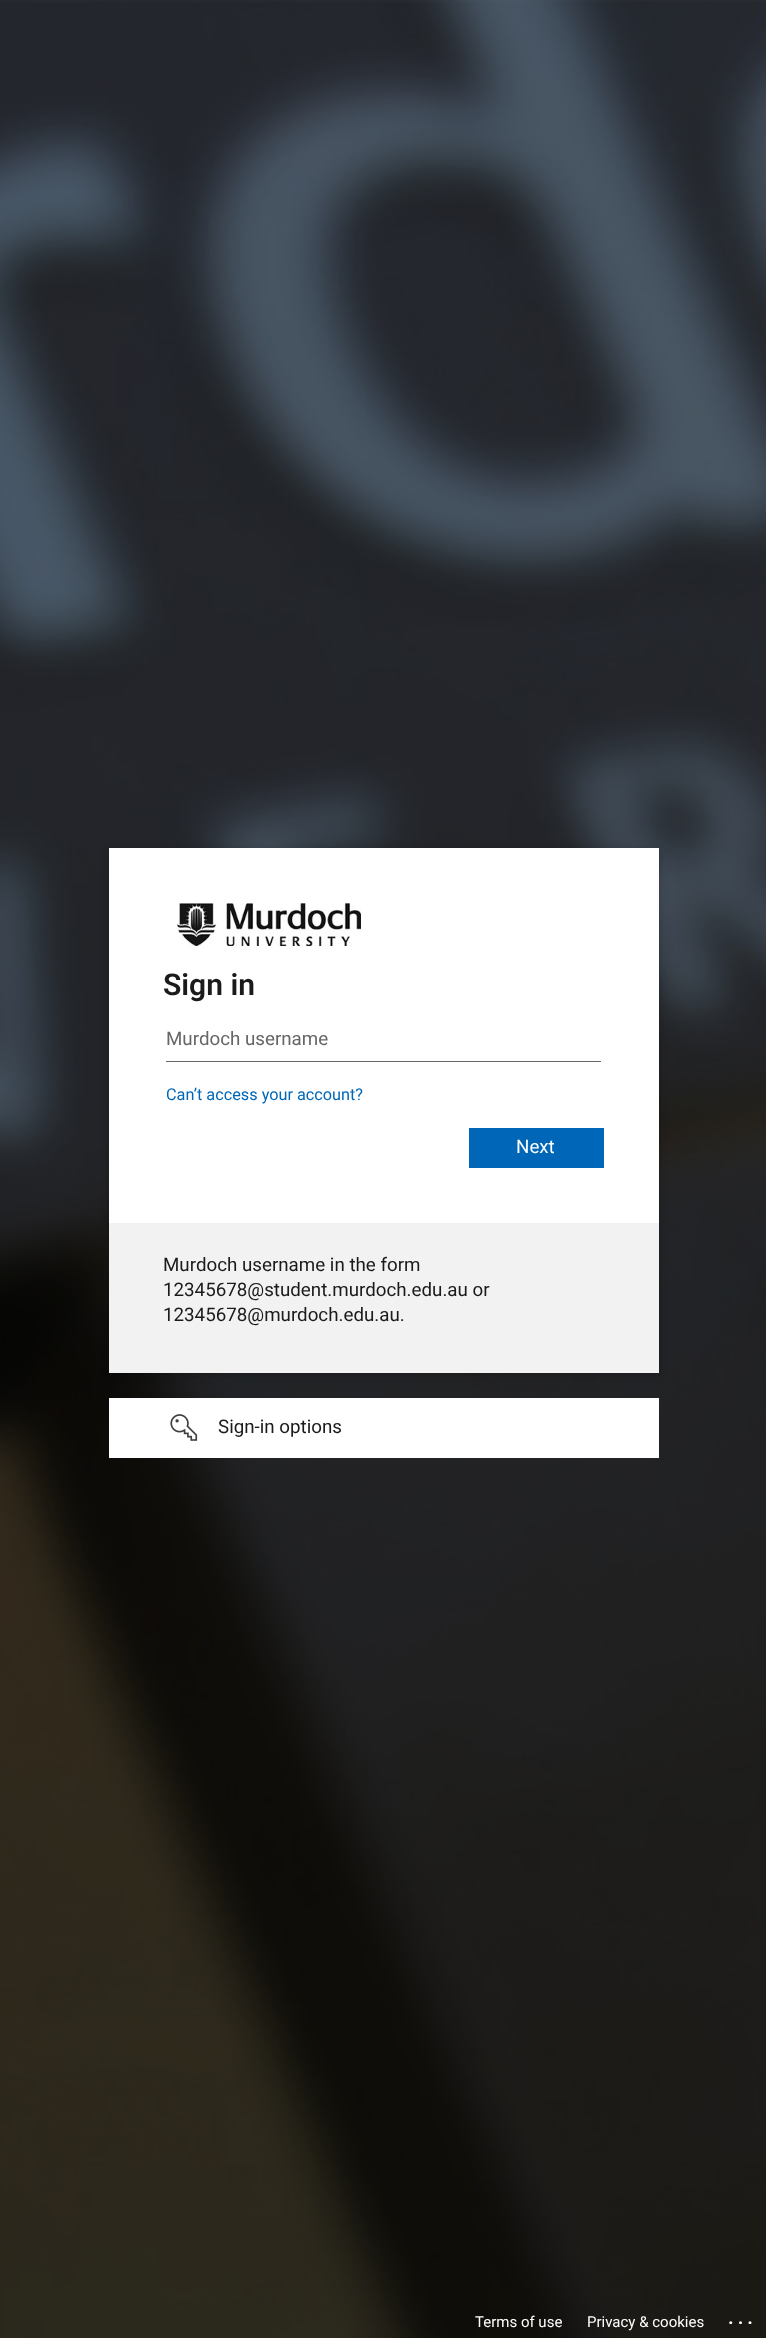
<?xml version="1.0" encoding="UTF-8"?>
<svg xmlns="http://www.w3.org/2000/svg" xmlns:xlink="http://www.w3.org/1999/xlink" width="766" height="2338">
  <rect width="100%" height="100%" fill="#ffffff" />
  <image x="0" y="0" width="766" height="2338" xlink:href="image1.png" />
  <rect x="109" y="850" width="550" height="525" fill="#000000" fill-opacity="0.2" filter="blur(4px)" />
  <rect x="109" y="848" width="550" height="375" fill="#ffffff" />
  <image x="177" y="903" width="185" height="45" xlink:href="image2.png" />
  <rect x="166" y="1061" width="435" height="1" fill="#666666" />
  <rect x="469" y="1128" width="135" height="40" fill="#0067b8" />
  <rect x="109" y="1223" width="550" height="150" fill="#f2f2f2" />
  <rect x="109" y="1398" width="550" height="60" fill="#ffffff" />
  <image x="170" y="1414" width="28" height="27" xlink:href="image3.png" />
  <text x="163" y="995" style="font-family: Roboto; font-size: 30px; font-weight: 600; fill: #1b1b1b">Sign in</text>
  <text x="166" y="1045" style="font-family: Roboto; font-size: 18.75px; fill: #666666">Murdoch username</text>
  <text x="166" y="1100" style="font-family: Roboto; font-size: 16.25px; fill: #0067b8">Can’t access your account?</text>
  <text x="516" y="1153" style="font-family: Roboto; font-size: 18.75px; fill: #ffffff">Next</text>
  <text x="163" y="1271" style="font-family: Roboto; font-size: 18.75px; fill: #1b1b1b">Murdoch username in the form</text>
  <text x="163" y="1296" style="font-family: Roboto; font-size: 18.75px; fill: #1b1b1b">12345678@student.murdoch.edu.au or</text>
  <text x="163" y="1321" style="font-family: Roboto; font-size: 18.75px; fill: #1b1b1b">12345678@murdoch.edu.au.</text>
  <text x="218" y="1433" style="font-family: Roboto; font-size: 18.75px; fill: #1b1b1b">Sign-in options</text>
  <text x="475" y="2327" style="font-family: Roboto; font-size: 15px; fill: #ffffff">Terms of use</text>
  <text x="587" y="2327" style="font-family: Roboto; font-size: 15px; fill: #ffffff">Privacy &amp; cookies</text>
  <text x="728" y="2324" style="font-family: Roboto; font-size: 20px; font-weight: 600; letter-spacing: 4px; fill: #ffffff">...</text>
</svg>
